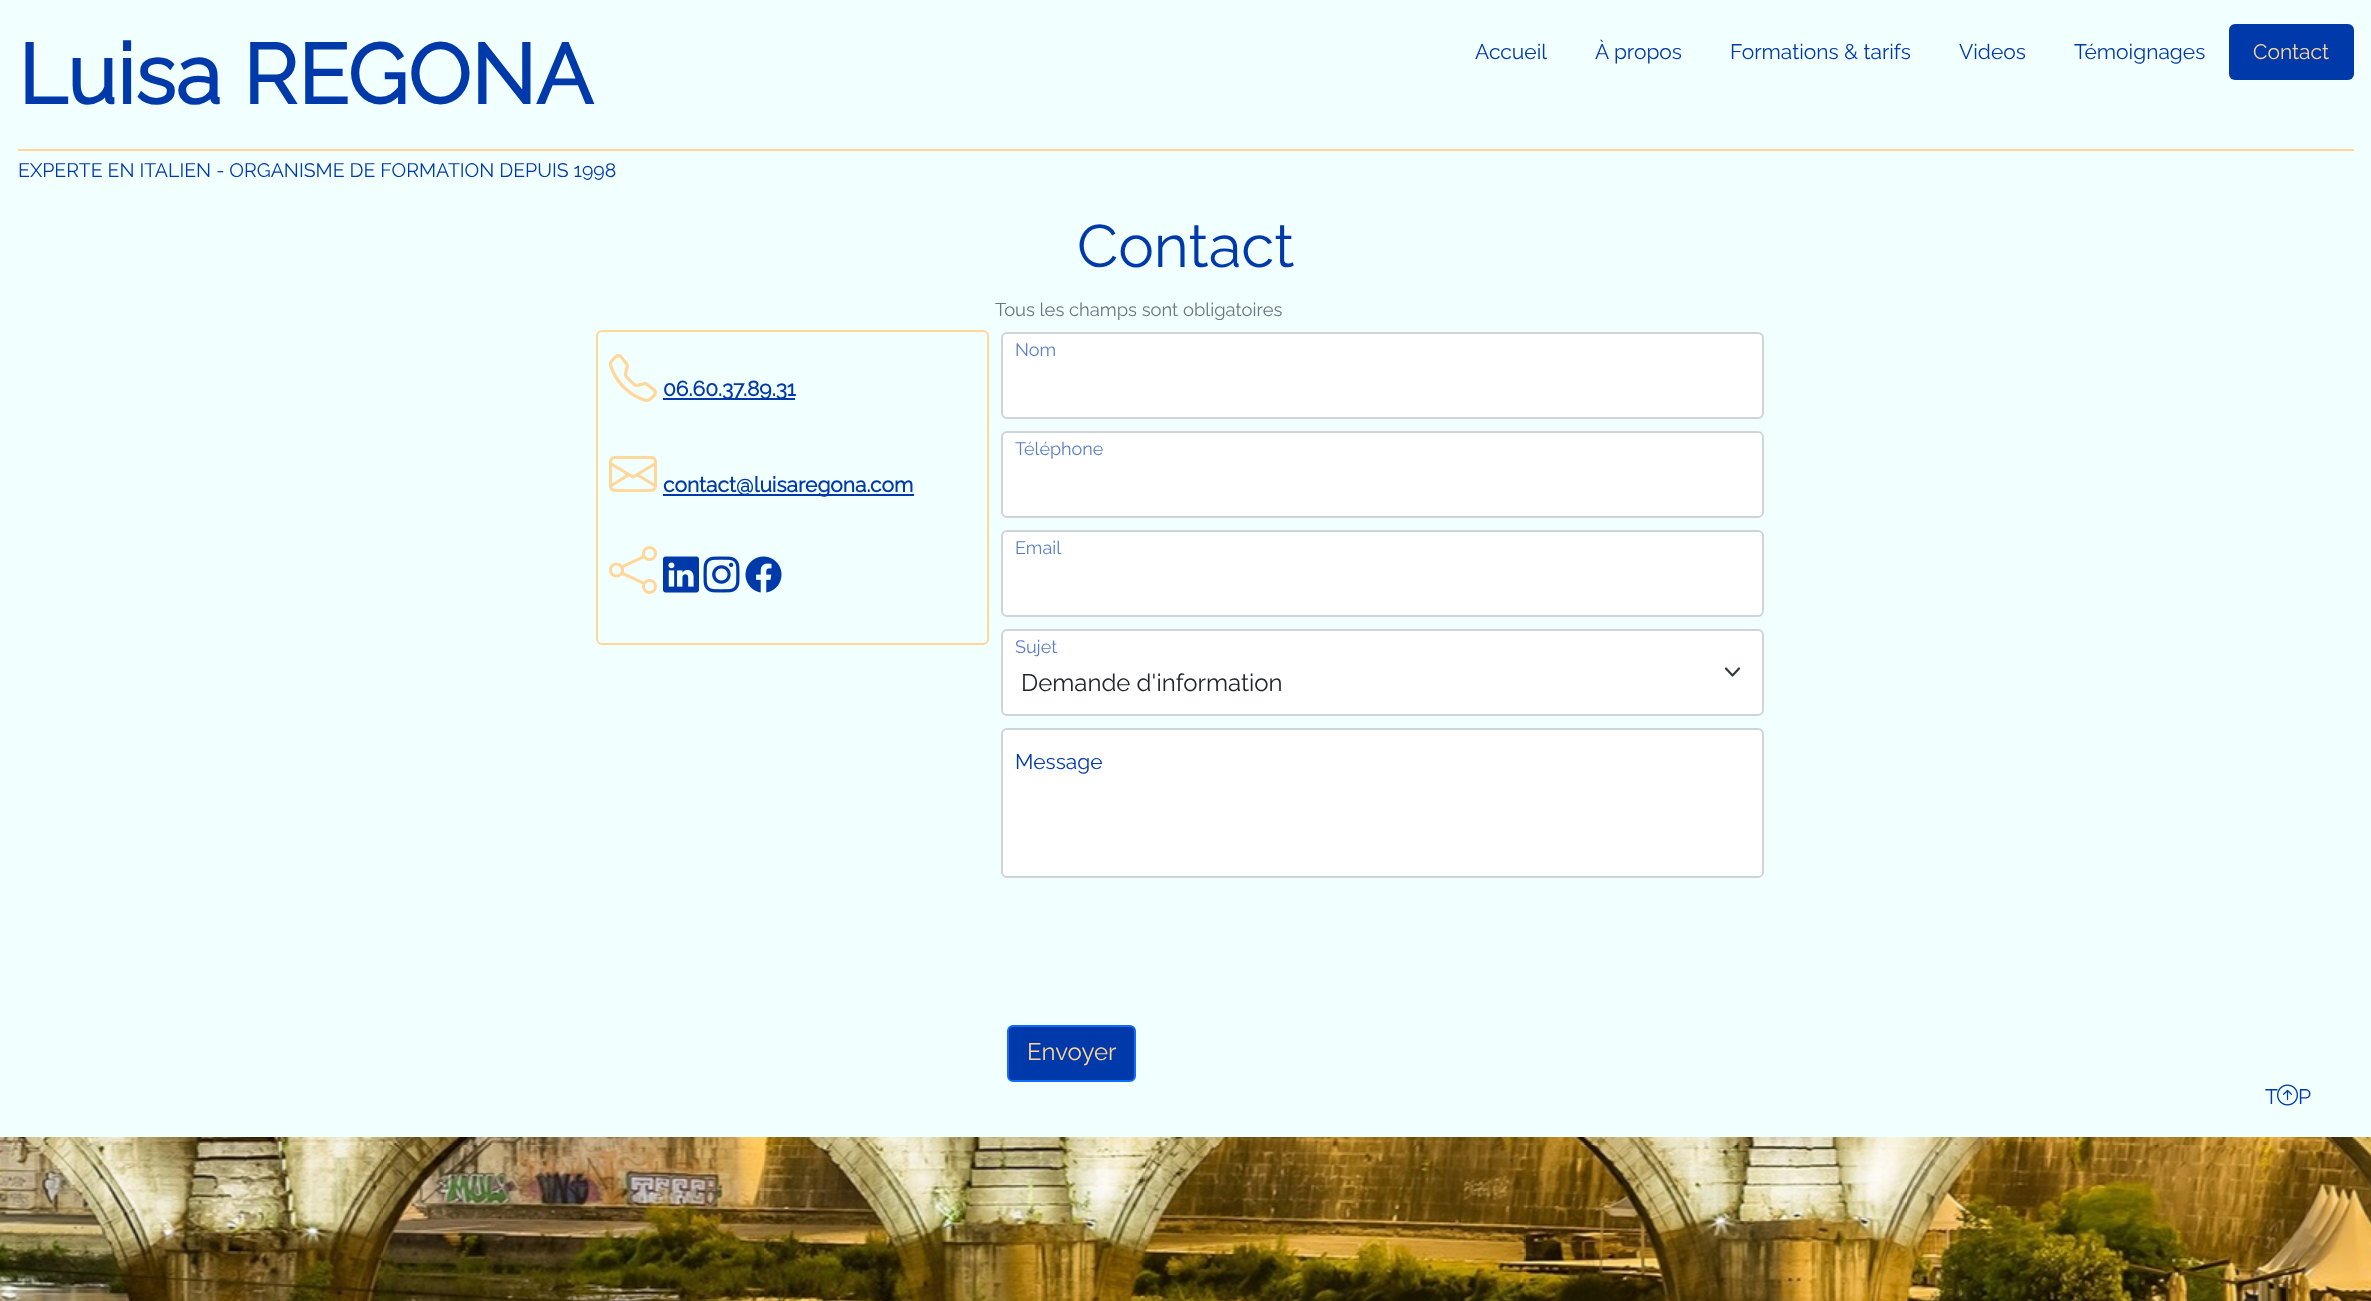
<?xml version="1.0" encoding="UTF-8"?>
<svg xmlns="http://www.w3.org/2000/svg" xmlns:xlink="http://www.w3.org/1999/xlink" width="2371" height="1301">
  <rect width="100%" height="100%" fill="#f1ffff" />
  <rect x="18" y="149" width="2336" height="2" fill="#ffd799" />
  <rect x="2229" y="24" width="125" height="56" rx="6" fill="#0039a9" />
  <rect x="597" y="331" width="391" height="313" rx="5" fill="none" stroke="#ffd799" stroke-width="2" />
  <image x="609" y="354" width="48" height="48" xlink:href="image1.png" />
  <rect x="663" y="398" width="132" height="2" fill="#0039a9" />
  <image x="609" y="455" width="48" height="37" xlink:href="image2.png" />
  <rect x="663" y="494" width="251" height="2" fill="#0039a9" />
  <image x="609" y="546" width="48" height="48" xlink:href="image3.png" />
  <image x="663" y="556" width="36" height="37" xlink:href="image4.png" />
  <image x="703" y="556" width="37" height="37" xlink:href="image5.png" />
  <image x="745" y="556" width="37" height="37" xlink:href="image6.png" />
  <rect x="1002" y="333" width="761" height="85" rx="5" fill="#ffffff" stroke="#ced4da" stroke-width="2" />
  <rect x="1002" y="432" width="761" height="85" rx="5" fill="#ffffff" stroke="#ced4da" stroke-width="2" />
  <rect x="1002" y="531" width="761" height="85" rx="5" fill="#ffffff" stroke="#ced4da" stroke-width="2" />
  <rect x="1001" y="629" width="763" height="87" rx="6" fill="#ffffff" />
  <path d="M 1726 668.5 l 6.5 7 l 6.5 -7" fill="none" stroke="#343a40" stroke-width="2.2" stroke-linecap="round" stroke-linejoin="round" />
  <rect x="1002" y="630" width="761" height="85" rx="5" fill="none" stroke="#ced4da" stroke-width="2" />
  <rect x="1002" y="729" width="761" height="148" rx="5" fill="#ffffff" stroke="#ced4da" stroke-width="2" />
  <rect x="1008" y="1026" width="127" height="55" rx="5" fill="#0039a9" stroke="#0d6efd" stroke-width="2" />
  <image x="0" y="1137" width="2371" height="164" xlink:href="image8.png" />
  <text x="18" y="104" style="font-family: Raleway; font-size: 84px; font-weight: bold; fill: #0039a9">Luisa REGONA</text>
  <text x="1475" y="59" style="font-family: Raleway; font-size: 21px; font-weight: 100; fill: #0039a9">Accueil</text>
  <text x="1595" y="59" style="font-family: Raleway; font-size: 21px; font-weight: 100; fill: #0039a9">À propos</text>
  <text x="1730" y="59" style="font-family: Raleway; font-size: 21px; font-weight: 100; fill: #0039a9">Formations &amp; tarifs</text>
  <text x="1959" y="59" style="font-family: Raleway; font-size: 21px; font-weight: 100; fill: #0039a9">Videos</text>
  <text x="2074" y="59" style="font-family: Raleway; font-size: 21px; font-weight: 100; fill: #0039a9">Témoignages</text>
  <text x="2253" y="59" style="font-family: Raleway; font-size: 21px; font-weight: 100; fill: #ffd799">Contact</text>
  <text x="18" y="177" style="font-family: Raleway; font-size: 19.5px; font-weight: 100; fill: #0039a9">EXPERTE EN ITALIEN - ORGANISME DE FORMATION DEPUIS 1998</text>
  <text x="1077" y="267" style="font-family: Raleway; font-size: 60px; font-weight: 100; fill: #0039a9">Contact</text>
  <text x="663" y="396" style="font-family: Raleway; font-size: 21px; font-weight: bold; fill: #0039a9">06.60.37.89.31</text>
  <text x="663" y="492" style="font-family: Raleway; font-size: 21px; font-weight: bold; fill: #0039a9">contact@luisaregona.com</text>
  <text x="995" y="316" style="font-family: Raleway; font-size: 18.4px; font-weight: 100; fill: #6c757d">Tous les champs sont obligatoires</text>
  <text x="1015" y="356" style="font-family: Raleway; font-size: 18px; font-weight: 100; fill: #597ec7">Nom</text>
  <text x="1015" y="455" style="font-family: Raleway; font-size: 18px; font-weight: 100; fill: #597ec7">Téléphone</text>
  <text x="1015" y="554" style="font-family: Raleway; font-size: 18px; font-weight: 100; fill: #597ec7">Email</text>
  <text x="1015" y="653" style="font-family: Raleway; font-size: 18px; font-weight: 100; fill: #597ec7">Sujet</text>
  <text x="1021" y="691" style="font-family: Raleway; font-size: 24px; font-weight: 100; fill: #212529">Demande d'information</text>
  <text x="1015" y="769" style="font-family: Raleway; font-size: 21px; font-weight: 100; fill: #0039a9">Message</text>
  <text x="1027" y="1060" style="font-family: Raleway; font-size: 24px; font-weight: 100; fill: #ffd799">Envoyer</text>
  <text x="2265" y="1104" style="font-family: Raleway; font-size: 21px; font-weight: 100; fill: #0039a9">T</text>
  <image x="2277" y="1084" width="21" height="22" xlink:href="image7.png" />
  <text x="2298" y="1104" style="font-family: Raleway; font-size: 21px; font-weight: 100; fill: #0039a9">P</text>
</svg>
